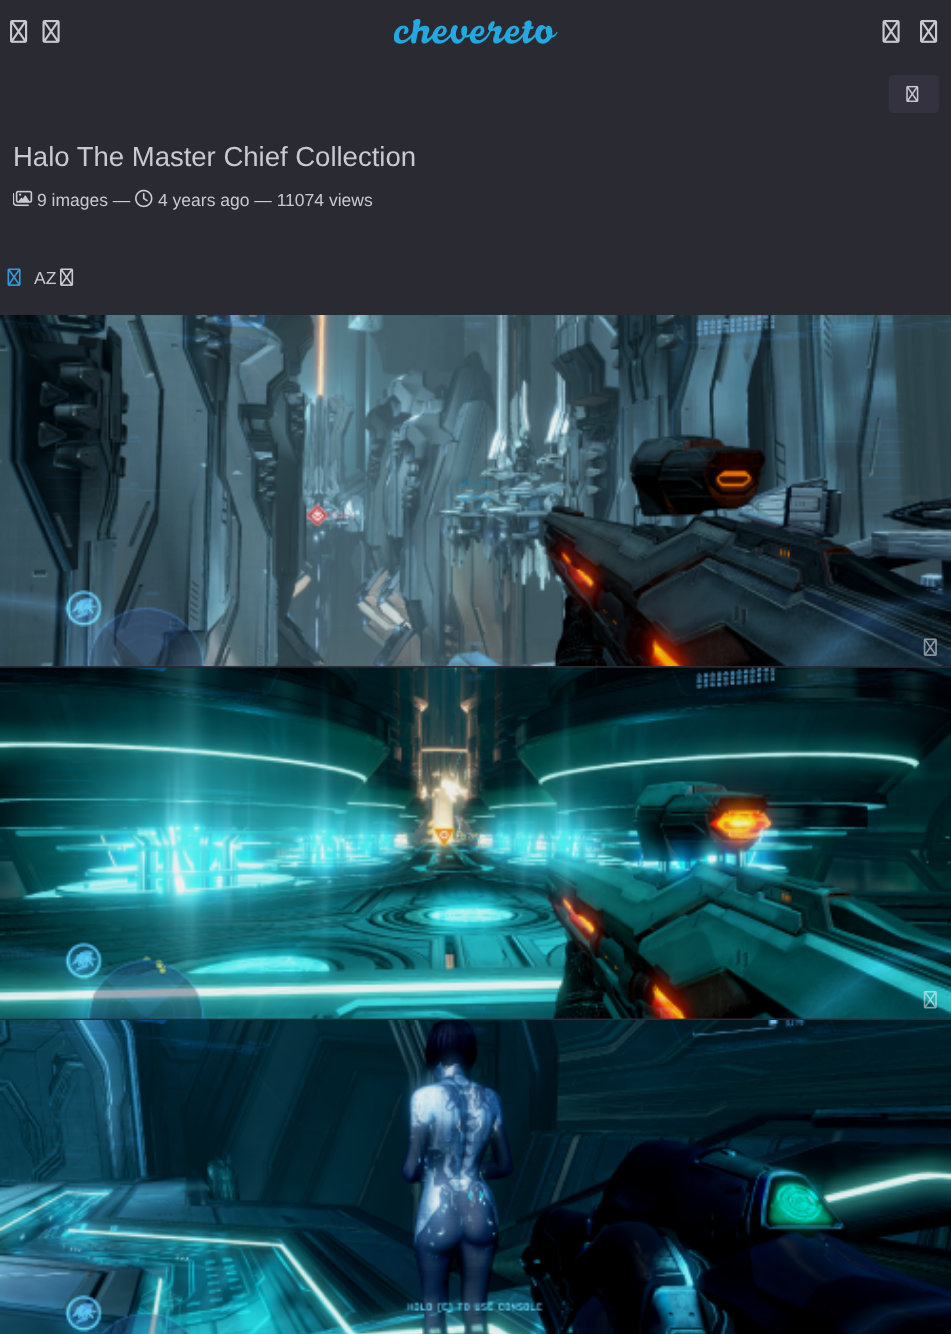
<?xml version="1.0" encoding="UTF-8"?>
<svg xmlns="http://www.w3.org/2000/svg" xmlns:xlink="http://www.w3.org/1999/xlink" width="951" height="1334">
  <rect width="100%" height="100%" fill="#2a2a32" />
  <image x="10" y="20" width="18" height="23" xlink:href="image1.png" />
  <image x="42" y="20" width="18" height="23" xlink:href="image2.png" />
  <image x="394" y="19" width="164" height="25" xlink:href="image3.png" />
  <image x="882" y="20" width="18" height="23" xlink:href="image2.png" />
  <image x="920" y="20" width="18" height="23" xlink:href="image1.png" />
  <rect x="889.5" y="75.5" width="49" height="37" rx="3.5" fill="#33323e" stroke="#33323e" />
  <image x="906" y="85" width="13" height="17" xlink:href="image4.png" />
  <image x="13" y="190" width="20" height="17" xlink:href="image5.png" />
  <image x="135" y="189" width="18" height="19" xlink:href="image6.png" />
  <image x="7" y="268" width="14" height="18" xlink:href="image7.png" />
  <image x="60" y="268" width="14" height="18" xlink:href="image8.png" />
  <image x="0" y="315" width="951" height="352" xlink:href="image9.png" />
  <image x="923" y="638" width="14" height="18" xlink:href="image10.png" />
  <rect y="1018" width="951" height="1" fill="#33323e" />
  <image x="0" y="667" width="951" height="352" xlink:href="image11.png" />
  <image x="923" y="990" width="14" height="19" xlink:href="image12.png" />
  <image x="0" y="1020" width="951" height="314" xlink:href="image13.png" />
  <text x="13" y="166" style="font-family: Liberation Sans; font-size: 27.5px; fill: #cac9cf">Halo The Master Chief Collection</text>
  <text x="37" y="206" style="font-family: Liberation Sans; font-size: 17.5px; fill: #cac9cf">9 images —</text>
  <text x="158" y="206" style="font-family: Liberation Sans; font-size: 17.5px; fill: #cac9cf">4 years ago — 11074 views</text>
  <text x="34" y="284" style="font-family: Liberation Sans; font-size: 17.5px; fill: #cac9cf">AZ</text>
</svg>
